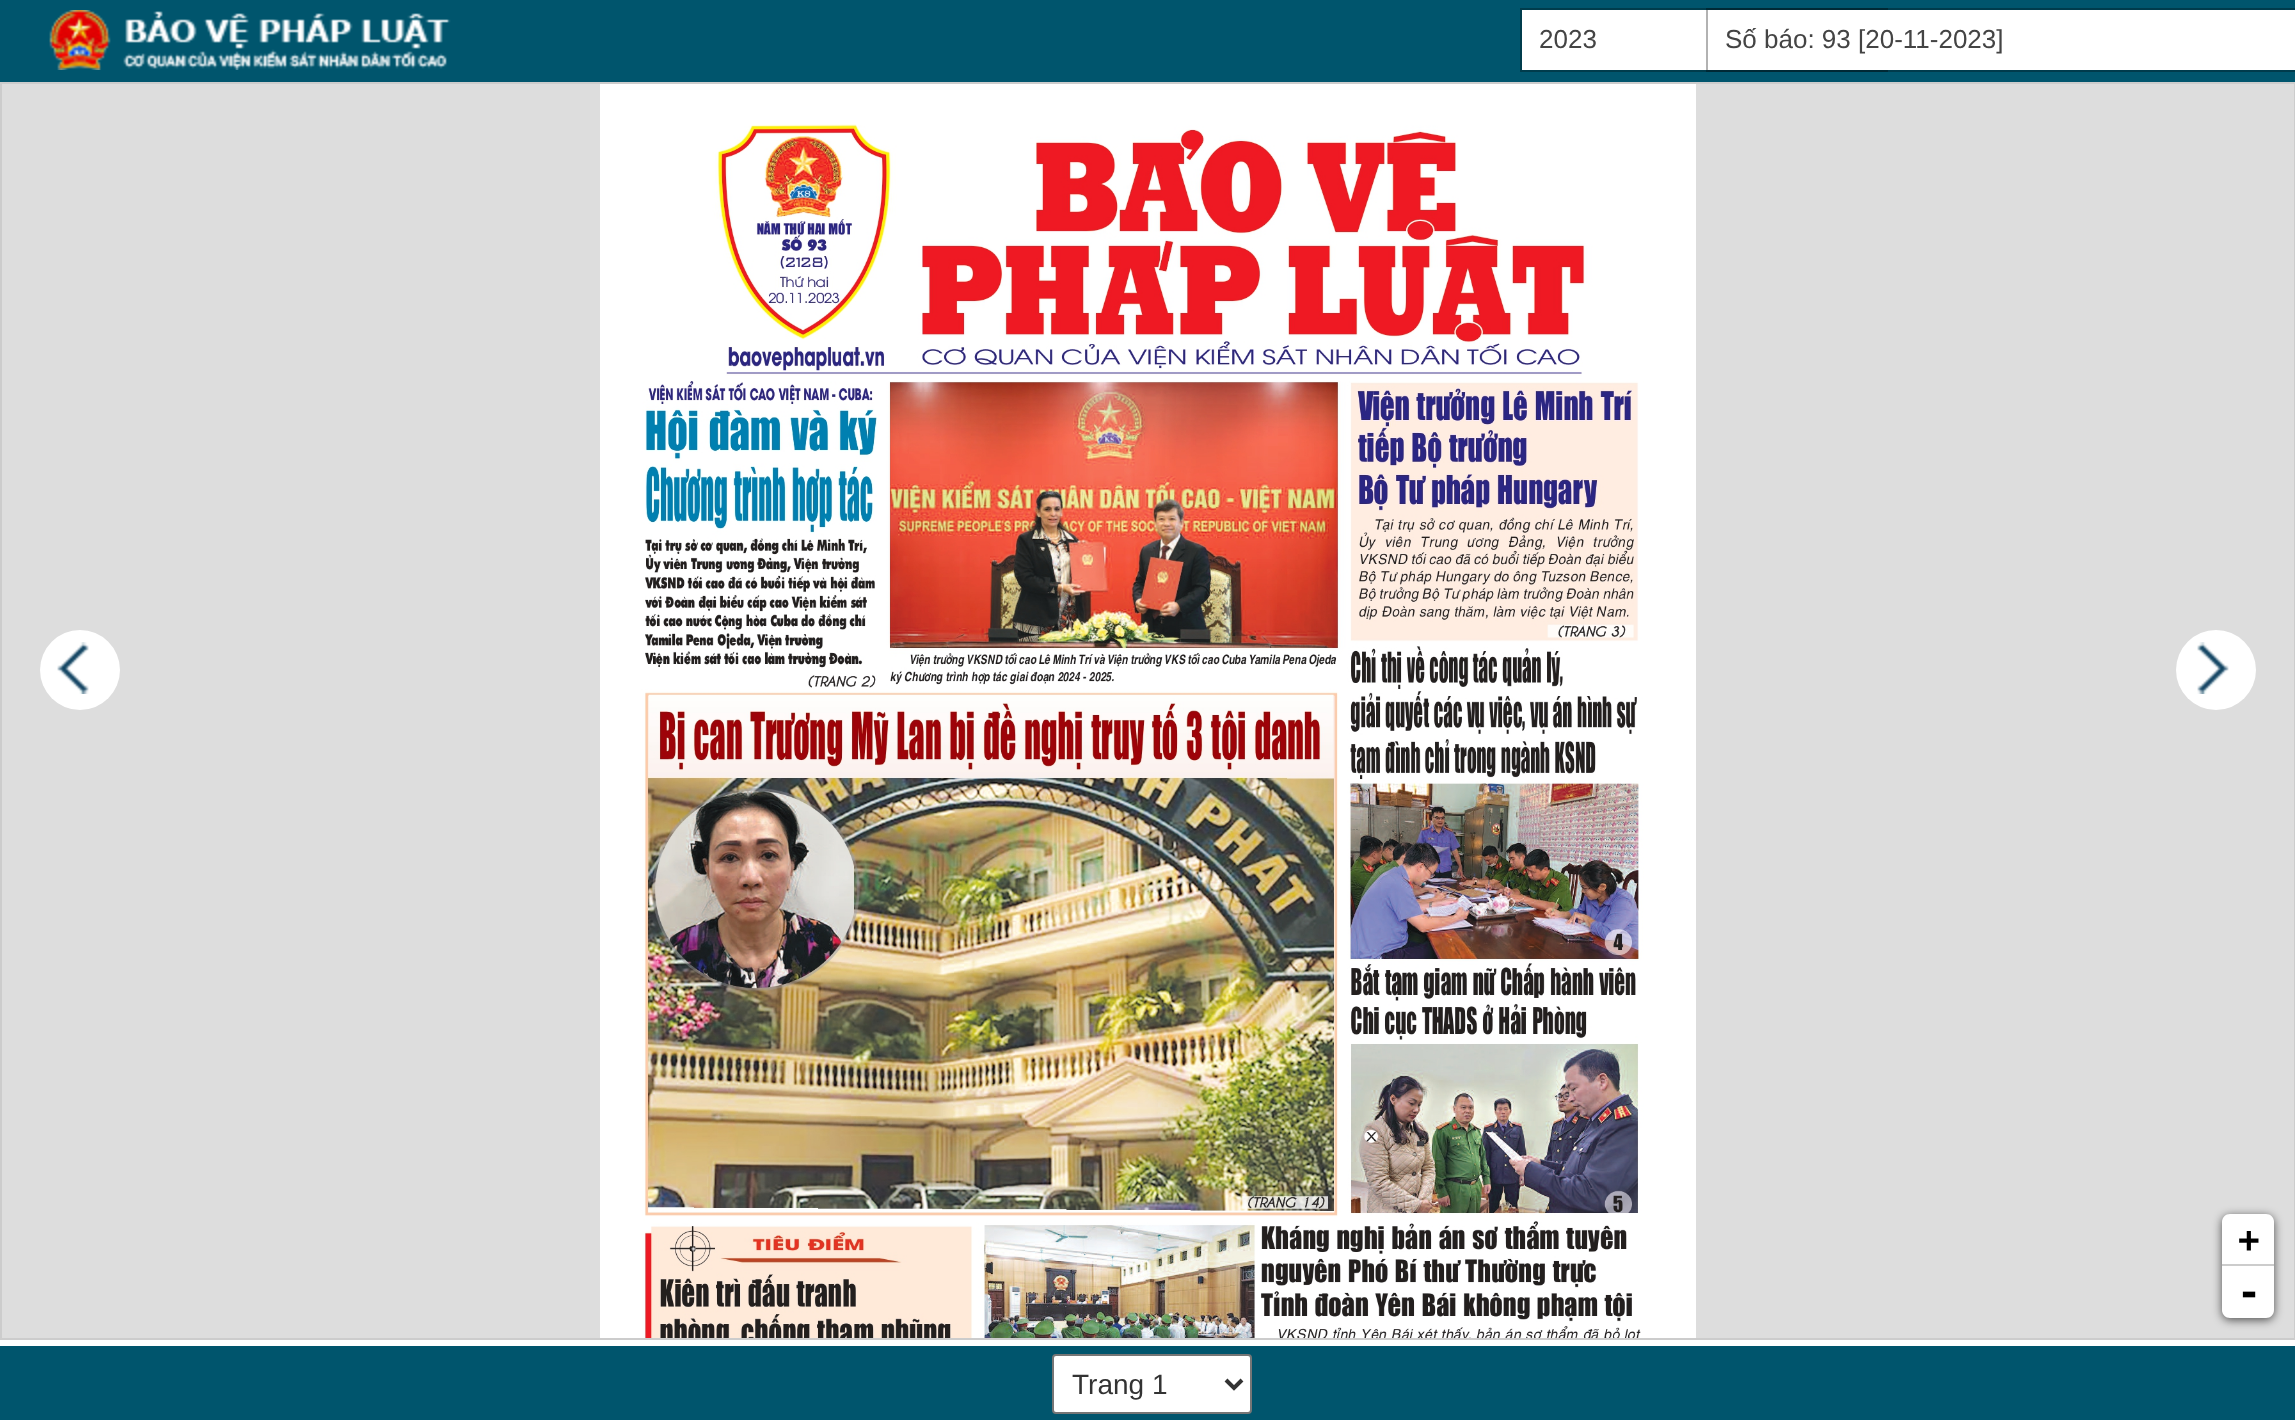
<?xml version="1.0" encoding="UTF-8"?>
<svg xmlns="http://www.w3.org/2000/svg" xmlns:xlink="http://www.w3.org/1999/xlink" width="2295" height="1420">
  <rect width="100%" height="100%" fill="#ffffff" />
  <rect width="2295" height="82" fill="#00556d" />
  <image x="49" y="10" width="402" height="60" xlink:href="image1.png" />
  <rect x="1521" y="9" width="366" height="62" fill="none" stroke="#003c4c" stroke-width="2" />
  <rect x="1522" y="10" width="186" height="60" fill="#ffffff" />
  <rect x="1707" y="9" width="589" height="62" fill="none" stroke="#000000" stroke-opacity="0.3" stroke-width="2" />
  <rect x="1708" y="10" width="587" height="60" fill="#ffffff" />
  <rect x="1" y="83" width="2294" height="1256" fill="#dddddd" stroke="#cccccc" stroke-width="2" />
  <circle cx="80" cy="670" r="40" fill="#ffffff" />
  <image x="57" y="642" width="32" height="52" xlink:href="image2.png" />
  <circle cx="2216" cy="670" r="40" fill="#ffffff" />
  <image x="2197" y="642" width="32" height="52" xlink:href="image3.png" />
  <image x="600" y="84" width="1096" height="1254" xlink:href="image4.png" />
  <rect x="2222" y="1216" width="52" height="104" rx="8" fill="#000000" fill-opacity="0.65" filter="blur(5px)" />
  <path d="M 2230 1214 h 36 c 4.5 0 8 3.5 8 8 v 44 h -52 v -44 c 0 -4.5 3.5 -8 8 -8 z" fill="#ffffff" />
  <rect x="2222" y="1264" width="52" height="2" fill="#cccccc" />
  <path d="M 2222 1266 h 52 v 44 c 0 4.5 -3.5 8 -8 8 h -36 c -4.5 0 -8 -3.5 -8 -8 z" fill="#ffffff" />
  <rect y="1346" width="2295" height="74" fill="#00556d" />
  <rect x="1053" y="1355" width="198" height="58" rx="3" fill="#ffffff" stroke="#767676" stroke-width="2" />
  <path d="M 1226 1380 l 8 8 l 8 -8" fill="none" stroke="#333333" stroke-width="4" />
  <text x="1539" y="48" style="font-family: Liberation Sans; font-size: 26px; fill: #444444">2023</text>
  <text x="1725" y="48" style="font-family: Liberation Sans; font-size: 26px; fill: #444444">Số báo: 93 [20-11-2023]</text>
  <text x="2238" y="1252" style="font-family: DejaVu Sans Mono; font-size: 36px; font-weight: bold; fill: #000000">+</text>
  <text x="2237" y="1306" style="font-family: DejaVu Sans Mono; font-size: 40px; font-weight: bold; fill: #000000">-</text>
  <text x="1072" y="1394" style="font-family: Liberation Sans; font-size: 28px; fill: #333333">Trang 1</text>
</svg>
